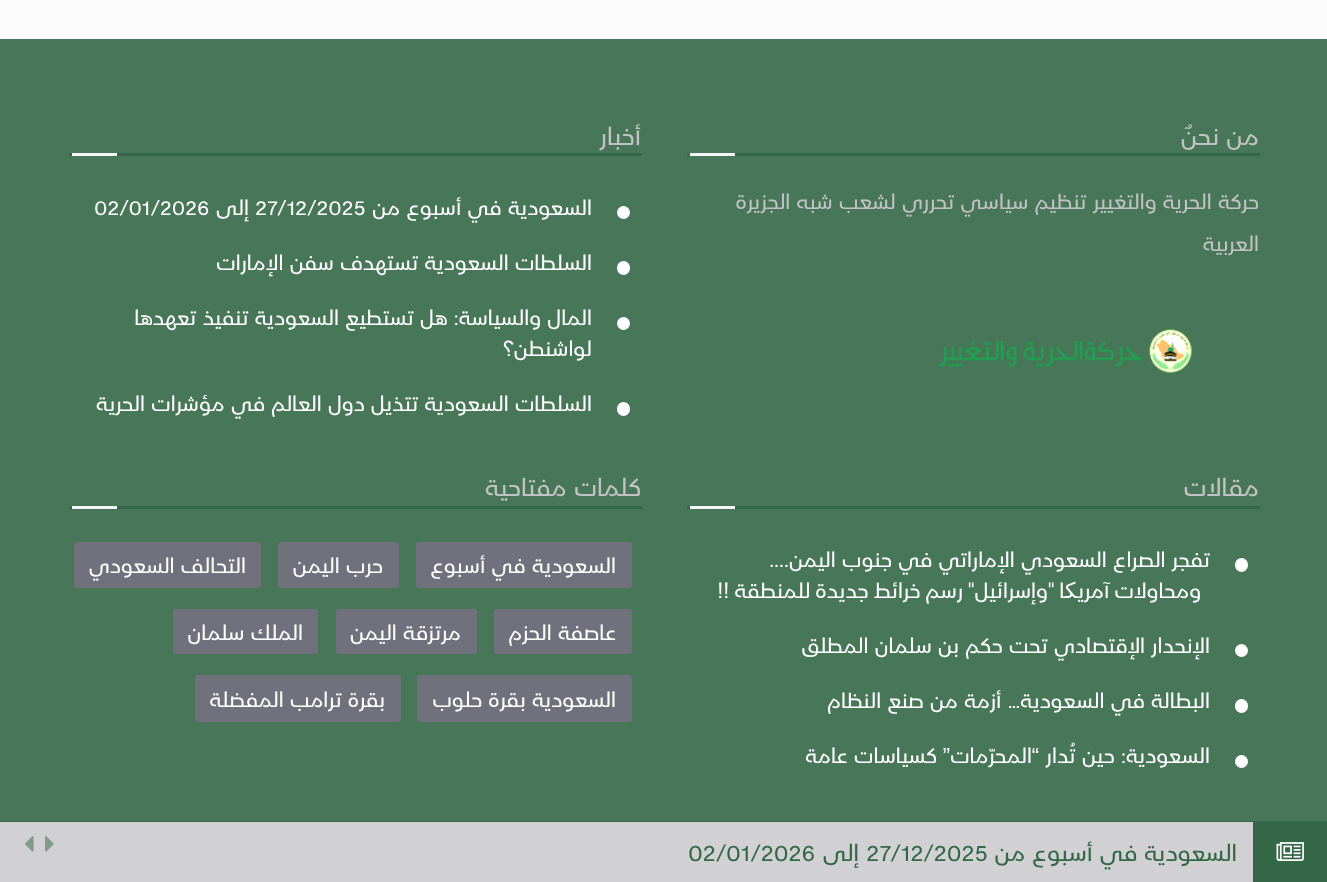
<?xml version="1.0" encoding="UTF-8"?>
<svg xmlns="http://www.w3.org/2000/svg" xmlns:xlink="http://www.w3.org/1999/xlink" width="1327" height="882">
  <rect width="100%" height="100%" fill="#fcfcfc" />
  <rect y="39" width="1327" height="782" fill="#477658" />
  <rect x="687" y="153" width="573" height="3" fill="#336746" />
  <rect x="690" y="153" width="45" height="3" fill="#f5f7f6" />
  <image x="938" y="328" width="255" height="46" xlink:href="image1.png" />
  <rect x="69" y="153" width="573" height="3" fill="#336746" />
  <rect x="72" y="153" width="45" height="3" fill="#f5f7f6" />
  <circle cx="623.5" cy="212.5" r="6.5" fill="#ffffff" />
  <rect x="617" y="261" width="13" height="14" rx="6.5" fill="#ffffff" />
  <circle cx="623.5" cy="323.5" r="6.5" fill="#ffffff" />
  <rect x="617" y="402" width="13" height="14" rx="6.5" fill="#ffffff" />
  <rect x="687" y="506" width="573" height="3" fill="#336746" />
  <rect x="690" y="506" width="45" height="3" fill="#f5f7f6" />
  <rect x="1235" y="558" width="13" height="14" rx="6.5" fill="#ffffff" />
  <circle cx="1241.5" cy="650.5" r="6.5" fill="#ffffff" />
  <rect x="1235" y="699" width="13" height="14" rx="6.5" fill="#ffffff" />
  <circle cx="1241.5" cy="761.5" r="6.5" fill="#ffffff" />
  <rect x="69" y="506" width="573" height="3" fill="#336746" />
  <rect x="72" y="506" width="45" height="3" fill="#f5f7f6" />
  <rect x="416" y="542" width="216" height="46" rx="3" fill="#70717c" />
  <rect x="278" y="542" width="121" height="46" rx="3" fill="#70717c" />
  <rect x="74" y="542" width="187" height="46" rx="3" fill="#70717c" />
  <rect x="494" y="609" width="138" height="45" rx="3" fill="#70717c" />
  <rect x="336" y="609" width="141" height="45" rx="3" fill="#70717c" />
  <rect x="173" y="609" width="145" height="45" rx="3" fill="#70717c" />
  <rect x="417" y="675" width="215" height="47" rx="3" fill="#70717c" />
  <rect x="195" y="675" width="206" height="47" rx="3" fill="#70717c" />
  <rect y="821" width="1327" height="1" fill="#336746" />
  <rect x="1253" y="822" width="74" height="60" fill="#336746" />
  <image x="1276" y="842" width="28" height="19" xlink:href="image2.png" />
  <rect y="822" width="1253" height="60" fill="#d1d1d3" />
  <image x="45" y="836" width="9" height="16" xlink:href="image3.png" />
  <image x="25" y="836" width="9" height="16" xlink:href="image4.png" />
  <text x="1259" y="145" style="font-family: 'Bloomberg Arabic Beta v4'; font-size: 25.5px; direction: rtl; fill: #c2c2c2">من نحنٌ</text>
  <text x="1259" y="209" style="font-family: 'Bloomberg Arabic Beta v4'; font-size: 21.75px; direction: rtl; fill: #c2c2c2">حركة الحرية والتغيير تنظيم سياسي تحرري لشعب شبه الجزيرة</text>
  <text x="1259" y="251" style="font-family: 'Bloomberg Arabic Beta v4'; font-size: 21.75px; direction: rtl; fill: #c2c2c2">العربية</text>
  <text x="641" y="145" style="font-family: 'Bloomberg Arabic Beta v4'; font-size: 25.5px; direction: rtl; fill: #c2c2c2">أخبار</text>
  <text x="592" y="215" style="font-family: 'Bloomberg Arabic Beta v4'; font-size: 21.75px; direction: rtl; fill: #ffffff">السعودية في أسبوع من</text>
  <text x="255" y="215" style="font-family: 'Bloomberg Arabic Beta v4'; font-size: 21.75px; fill: #ffffff">27/12/2025</text>
  <text x="249" y="215" style="font-family: 'Bloomberg Arabic Beta v4'; font-size: 21.75px; direction: rtl; fill: #ffffff">إلى</text>
  <text x="94" y="215" style="font-family: 'Bloomberg Arabic Beta v4'; font-size: 21.75px; fill: #ffffff">02/01/2026</text>
  <text x="592" y="270" style="font-family: 'Bloomberg Arabic Beta v4'; font-size: 21.75px; direction: rtl; fill: #ffffff">السلطات السعودية تستهدف سفن الإمارات</text>
  <text x="592" y="325" style="font-family: 'Bloomberg Arabic Beta v4'; font-size: 21.75px; direction: rtl; fill: #ffffff">المال والسياسة: هل تستطيع السعودية تنفيذ تعهدها</text>
  <text x="592" y="356" style="font-family: 'Bloomberg Arabic Beta v4'; font-size: 21.75px; direction: rtl; fill: #ffffff">لواشنطن؟</text>
  <text x="592" y="411" style="font-family: 'Bloomberg Arabic Beta v4'; font-size: 21.75px; direction: rtl; fill: #ffffff">السلطات السعودية تتذيل دول العالم في مؤشرات الحرية</text>
  <text x="1259" y="496" style="font-family: 'Bloomberg Arabic Beta v4'; font-size: 25.5px; direction: rtl; fill: #c2c2c2">مقالات</text>
  <text x="1210" y="567" style="font-family: 'Bloomberg Arabic Beta v4'; font-size: 21.75px; direction: rtl; fill: #ffffff">تفجر الصراع السعودي الإماراتي في جنوب اليمن....</text>
  <text x="1065" y="598" word-spacing="-1.25" style="font-family: 'Bloomberg Arabic Beta v4'; font-size: 21.75px; direction: rtl; fill: #ffffff">‍ا "وإسرائيل" رسم خرائط جديدة للمنطقة !!</text>
  <text x="1077" y="598" style="font-family: DejaVu Sans; font-size: 21.75px; direction: rtl; fill: #ffffff">‍ک‍</text>
  <text x="1201" y="598" word-spacing="-1.25" style="font-family: 'Bloomberg Arabic Beta v4'; font-size: 21.75px; direction: rtl; fill: #ffffff">ومحاولات آمري‍</text>
  <text x="1210" y="653" style="font-family: 'Bloomberg Arabic Beta v4'; font-size: 21.75px; direction: rtl; fill: #ffffff">الإنحدار الإقتصادي تحت حكم بن سلمان المطلق</text>
  <text x="1210" y="708" style="font-family: 'Bloomberg Arabic Beta v4'; font-size: 21.75px; direction: rtl; fill: #ffffff">البطالة في السعودية… أزمة من صنع النظام</text>
  <text x="1210" y="763" style="font-family: 'Bloomberg Arabic Beta v4'; font-size: 21.75px; direction: rtl; fill: #ffffff">السعودية: حين تُدار</text>
  <text x="1039" y="763" style="font-family: Liberation Sans; font-size: 21.75px; direction: rtl; fill: #ffffff">“</text>
  <text x="1032" y="763" style="font-family: 'Bloomberg Arabic Beta v4'; font-size: 21.75px; direction: rtl; fill: #ffffff">المحرّمات</text>
  <text x="950" y="763" style="font-family: Liberation Sans; font-size: 21.75px; direction: rtl; fill: #ffffff">”</text>
  <text x="937" y="763" style="font-family: 'Bloomberg Arabic Beta v4'; font-size: 21.75px; direction: rtl; fill: #ffffff">كسياسات عامة</text>
  <text x="641" y="496" style="font-family: 'Bloomberg Arabic Beta v4'; font-size: 25.5px; direction: rtl; fill: #c2c2c2">كلمات مفتاحية</text>
  <text x="616" y="573" style="font-family: 'Bloomberg Arabic Beta v4'; font-size: 21.75px; direction: rtl; fill: #ffffff">السعودية في أسبوع</text>
  <text x="383" y="573" style="font-family: 'Bloomberg Arabic Beta v4'; font-size: 21.75px; direction: rtl; fill: #ffffff">حرب اليمن</text>
  <text x="246" y="573" style="font-family: 'Bloomberg Arabic Beta v4'; font-size: 21.75px; direction: rtl; fill: #ffffff">التحالف السعودي</text>
  <text x="616" y="640" style="font-family: 'Bloomberg Arabic Beta v4'; font-size: 21.75px; direction: rtl; fill: #ffffff">عاصفة الحزم</text>
  <text x="461" y="640" style="font-family: 'Bloomberg Arabic Beta v4'; font-size: 21.75px; direction: rtl; fill: #ffffff">مرتزقة اليمن</text>
  <text x="303" y="640" style="font-family: 'Bloomberg Arabic Beta v4'; font-size: 21.75px; direction: rtl; fill: #ffffff">الملك سلمان</text>
  <text x="616" y="707" style="font-family: 'Bloomberg Arabic Beta v4'; font-size: 21.75px; direction: rtl; fill: #ffffff">السعودية بقرة حلوب</text>
  <text x="385" y="707" style="font-family: 'Bloomberg Arabic Beta v4'; font-size: 21.75px; direction: rtl; fill: #ffffff">بقرة ترامب المفضلة</text>
  <text x="1237" y="861" style="font-family: 'Bloomberg Arabic Beta v4'; font-size: 24px; direction: rtl; fill: #336746">السعودية في أسبوع من</text>
  <text x="866" y="861" style="font-family: 'Bloomberg Arabic Beta v4'; font-size: 24px; fill: #336746">27/12/2025</text>
  <text x="859" y="861" style="font-family: 'Bloomberg Arabic Beta v4'; font-size: 24px; direction: rtl; fill: #336746">إلى</text>
  <text x="688" y="861" style="font-family: 'Bloomberg Arabic Beta v4'; font-size: 24px; fill: #336746">02/01/2026</text>
</svg>
